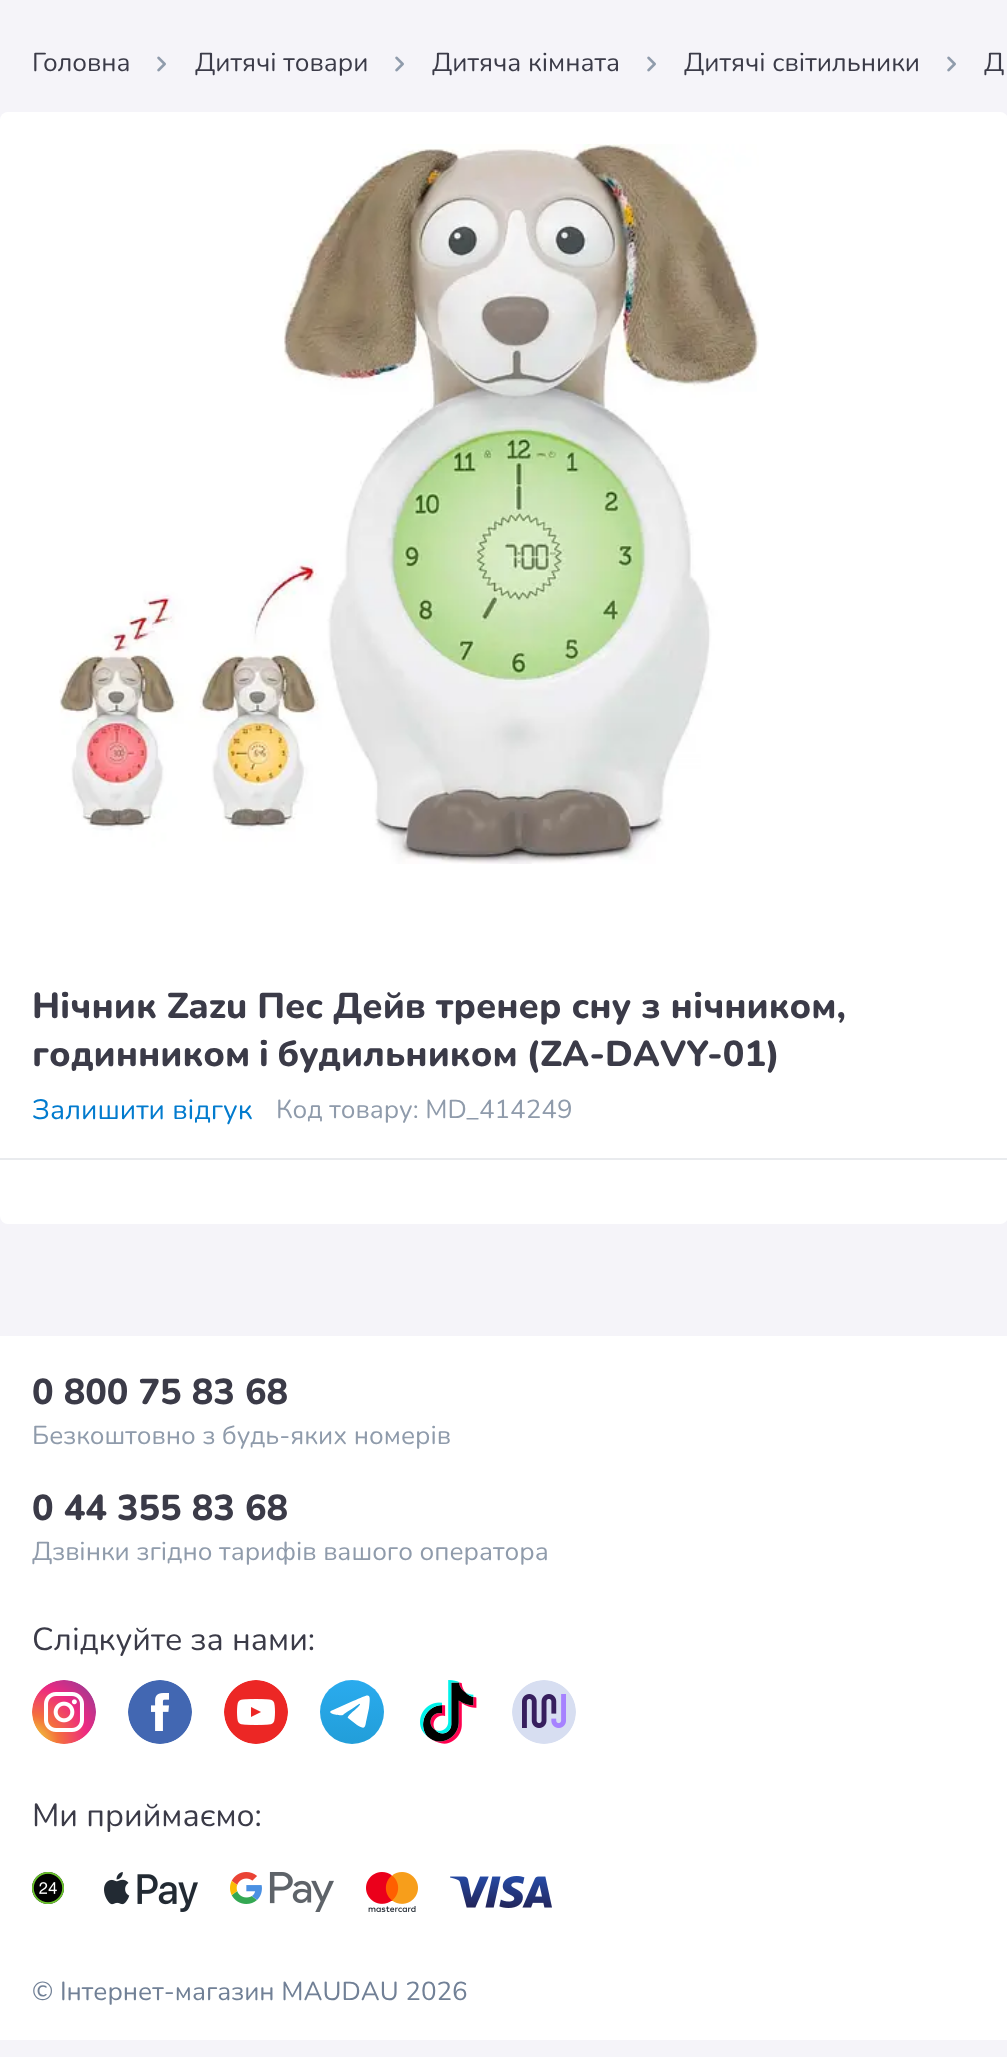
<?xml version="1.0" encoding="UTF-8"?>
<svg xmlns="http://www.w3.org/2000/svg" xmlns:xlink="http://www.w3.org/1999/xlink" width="1007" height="2057">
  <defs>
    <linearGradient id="g1" gradientUnits="userSpaceOnUse" x1="352" y1="1680" x2="352" y2="1744"><stop offset="0" stop-color="#2aabee" /><stop offset="1" stop-color="#229ed9" /></linearGradient>
  </defs>
  <rect width="100%" height="100%" fill="#f5f4f9" />
  <image x="157" y="56" width="9" height="16" xlink:href="image1.png" />
  <image x="395" y="56" width="9" height="16" xlink:href="image1.png" />
  <image x="647" y="56" width="9" height="16" xlink:href="image1.png" />
  <image x="947" y="56" width="9" height="16" xlink:href="image1.png" />
  <rect y="112" width="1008" height="1112" rx="8" fill="#ffffff" />
  <image x="59" y="144" width="700" height="720" xlink:href="image2.png" />
  <rect y="1158" width="1007" height="2" fill="#e9ebee" />
  <rect y="1336" width="1007" height="704" fill="#ffffff" />
  <image x="32" y="1680" width="64" height="64" xlink:href="image3.png" />
  <image x="128" y="1680" width="64" height="64" xlink:href="image4.png" />
  <image x="224" y="1680" width="64" height="64" xlink:href="image5.png" />
  <circle cx="352" cy="1712" r="32" fill="url(#g1)" />
  <path d="M 333 1710 l 20 -9 c 17 -7 18 -10 16 7 l -3 14 c -1 7 -2 7 -9 3 l -9 -7 c -2 -2 13 -12 12 -14 c 0 -1 -2 1 -16 10 l -1 1 c -4 1 -19 -2 -10 -5 z" fill="#ffffff" />
  <image x="420" y="1680" width="57" height="64" xlink:href="image6.png" />
  <image x="512" y="1680" width="64" height="64" xlink:href="image7.png" />
  <image x="32" y="1872" width="32" height="32" xlink:href="image8.png" />
  <image x="104" y="1872" width="94" height="40" xlink:href="image9.png" />
  <image x="230" y="1872" width="104" height="40" xlink:href="image10.png" />
  <image x="366" y="1872" width="52" height="40" xlink:href="image11.png" />
  <image x="450" y="1876" width="102" height="32" xlink:href="image12.png" />
  <text x="32" y="71" style="font-family: Nunito; font-size: 26px; fill: #3b3b48">Головна</text>
  <text x="195" y="71" style="font-family: Nunito; font-size: 26px; fill: #3b3b48">Дитячі товари</text>
  <text x="432" y="71" style="font-family: Nunito; font-size: 26px; fill: #3b3b48">Дитяча кімната</text>
  <text x="684" y="71" style="font-family: Nunito; font-size: 26px; fill: #3b3b48">Дитячі світильники</text>
  <text x="984" y="71" style="font-family: Nunito; font-size: 26px; fill: #3b3b48">Д</text>
  <text x="32" y="1018" style="font-family: Nunito; font-size: 36px; font-weight: 800; fill: #3b3b48">Нічник Zazu Пес Дейв тренер сну з нічником,</text>
  <text x="32" y="1066" word-spacing="-1.5" style="font-family: Nunito; font-size: 36px; font-weight: 800; fill: #3b3b48">годинником і будильником (ZA-DAVY-01)</text>
  <text x="32" y="1119" style="font-family: Nunito; font-size: 28px; fill: #027bce">Залишити відгук</text>
  <text x="276" y="1118" style="font-family: Nunito; font-size: 26px; fill: #8f9bab">Код товару: MD_414249</text>
  <text x="32" y="1404" style="font-family: Nunito; font-size: 36px; font-weight: 800; fill: #3b3b48">0 800 75 83 68</text>
  <text x="32" y="1444" style="font-family: Nunito; font-size: 26px; fill: #8f9bab">Безкоштовно з будь-яких номерів</text>
  <text x="32" y="1520" style="font-family: Nunito; font-size: 36px; font-weight: 800; fill: #3b3b48">0 44 355 83 68</text>
  <text x="32" y="1560" style="font-family: Nunito; font-size: 26px; fill: #8f9bab">Дзвінки згідно тарифів вашого оператора</text>
  <text x="32" y="1650" style="font-family: Nunito; font-size: 32px; fill: #3b3b48">Слідкуйте за нами:</text>
  <text x="32" y="1826" style="font-family: Nunito; font-size: 32px; fill: #3b3b48">Ми приймаємо:</text>
  <text x="32" y="2000" style="font-family: Nunito; font-size: 26px; fill: #718096">© Інтернет-магазин MAUDAU 2026</text>
</svg>
